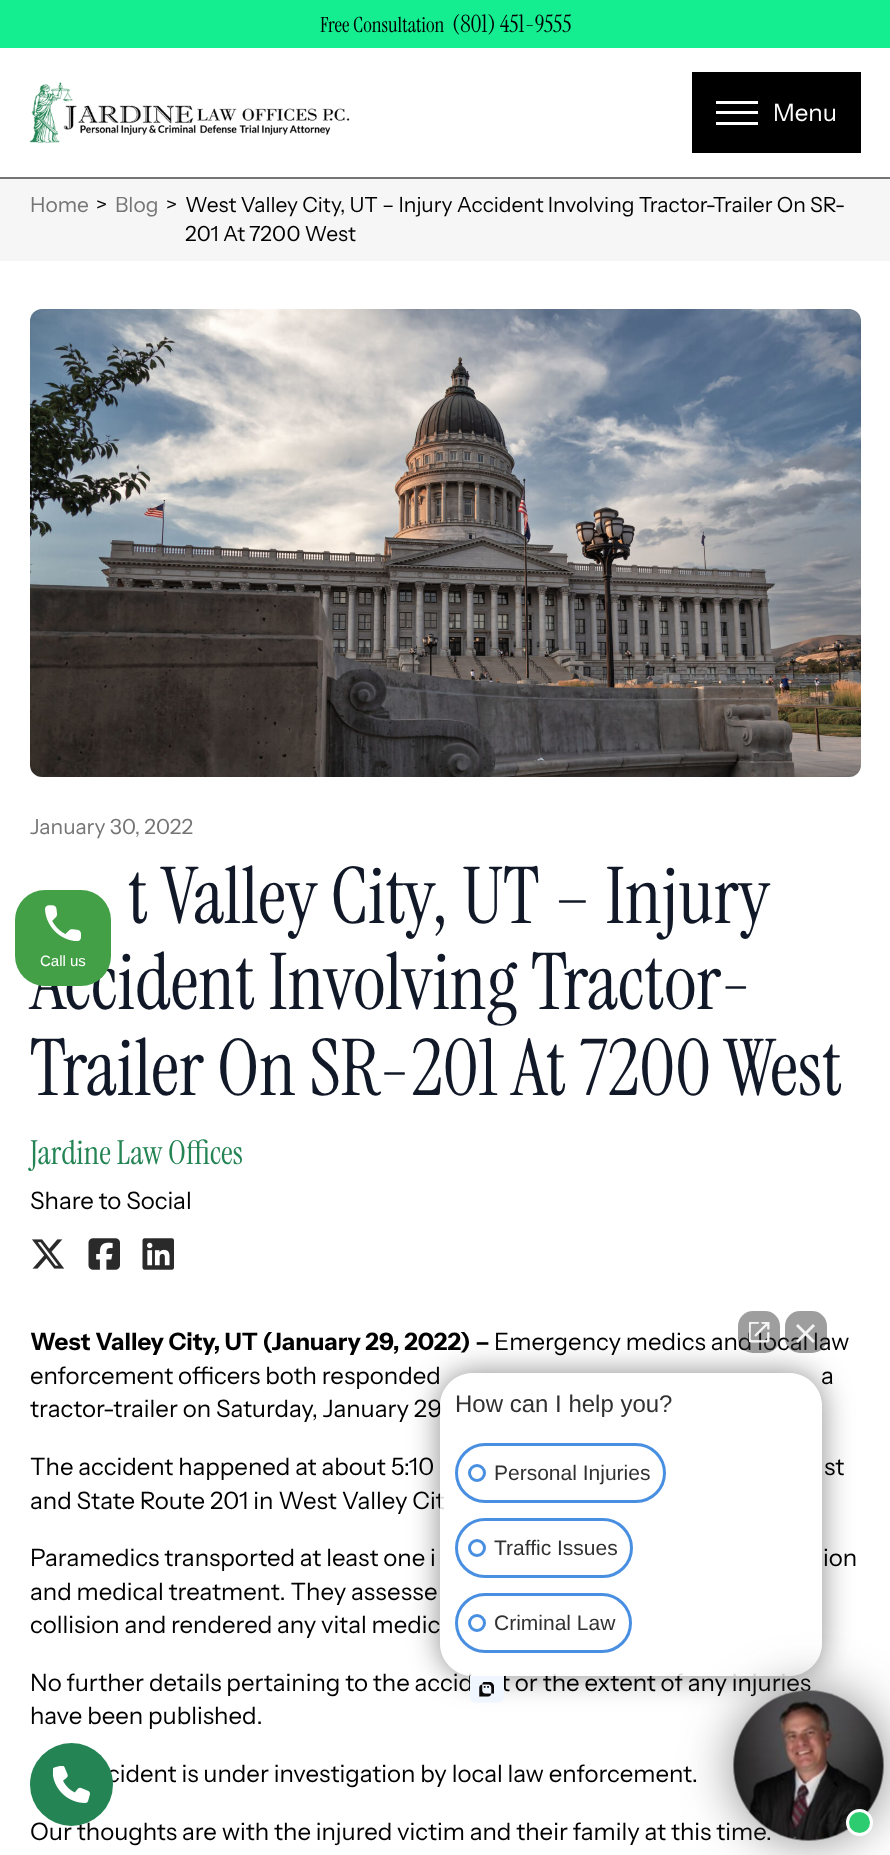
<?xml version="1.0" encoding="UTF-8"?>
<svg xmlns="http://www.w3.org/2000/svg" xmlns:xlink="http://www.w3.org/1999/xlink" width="890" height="1855">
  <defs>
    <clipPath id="clip1"><path d="M 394 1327 h 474 v 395 h -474 z m 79 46 h 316 c 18 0 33 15 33 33 v 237 c 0 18 -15 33 -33 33 h -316 c -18 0 -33 -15 -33 -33 v -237 c 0 -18 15 -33 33 -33 z" clip-rule="evenodd" /></clipPath>
  </defs>
  <rect width="100%" height="100%" fill="#ffffff" />
  <rect width="890" height="48" fill="#15ee90" />
  <rect y="177" width="890" height="2" fill="#757575" />
  <image x="30" y="82" width="320" height="61" xlink:href="image1.png" />
  <rect x="692" y="72" width="169" height="81" fill="#000000" />
  <rect x="716" y="111" width="42" height="3" fill="#ffffff" />
  <rect x="716" y="101" width="42" height="3" fill="#ffffff" />
  <rect x="716" y="122" width="42" height="3" fill="#ffffff" />
  <rect y="179" width="890" height="82" fill="#f6f6f6" />
  <image x="30" y="309" width="831" height="468" xlink:href="image2.png" />
  <image x="32" y="1239" width="33" height="30" xlink:href="image3.png" />
  <image x="88" y="1238" width="32" height="32" xlink:href="image4.png" />
  <image x="142" y="1238" width="32" height="32" xlink:href="image5.png" />
  <g clip-path="url(#clip1)">
    <rect x="440" y="1373" width="382" height="303" rx="33" fill="#3c3c3c" fill-opacity="0.6" filter="blur(15px)" />
  </g>
  <text x="320" y="32" style="font-family: Instrument Serif; font-size: 21px; fill: #000000">Free Consultation</text>
  <text x="452" y="32" style="font-family: Instrument Serif; font-size: 24px; fill: #000000">(801) 451-9555</text>
  <text x="773" y="121" style="font-family: Instrument Sans; font-size: 24px; fill: #ffffff">Menu</text>
  <text x="30" y="212" style="font-family: Instrument Sans; font-size: 21px; fill: #757575">Home</text>
  <text x="96" y="212" style="font-family: Instrument Sans; font-size: 21px; fill: #000000">&gt;</text>
  <text x="115" y="212" style="font-family: Instrument Sans; font-size: 21px; fill: #757575">Blog</text>
  <text x="166" y="212" style="font-family: Instrument Sans; font-size: 21px; fill: #000000">&gt;</text>
  <text x="185" y="212" style="font-family: Instrument Sans; font-size: 21px; fill: #000000">West Valley City, UT – Injury Accident Involving Tractor-Trailer On SR-</text>
  <text x="185" y="241" style="font-family: Instrument Sans; font-size: 21px; fill: #000000">201 At 7200 West</text>
  <text x="30" y="834" style="font-family: Instrument Sans; font-size: 21px; fill: #757575">January 30, 2022</text>
  <text x="128" y="923" style="font-family: Instrument Serif; font-size: 78px; fill: #111827">t Valley City, UT – Injury</text>
  <text x="30" y="1009" style="font-family: Instrument Serif; font-size: 78px; fill: #111827">Accident Involving Tractor-</text>
  <text x="30" y="1095" style="font-family: Instrument Serif; font-size: 78px; fill: #111827">Trailer On SR-201 At 7200 West</text>
  <text x="30" y="1164" style="font-family: Instrument Serif; font-size: 33px; fill: #248454">Jardine Law Offices</text>
  <text x="30" y="1209" style="font-family: Instrument Sans; font-size: 24px; fill: #000000">Share to Social</text>
  <text x="30" y="1350" style="font-family: Instrument Sans; font-size: 24px; font-weight: bold; fill: #000000">West Valley City, UT (January 29, 2022) –</text>
  <text x="494" y="1350" style="font-family: Instrument Sans; font-size: 24px; fill: #000000">Emergency medics and local law</text>
  <text x="30" y="1384" style="font-family: Instrument Sans; font-size: 24px; fill: #000000">enforcement officers both responded</text>
  <text x="821" y="1384" style="font-family: Instrument Sans; font-size: 24px; fill: #000000">a</text>
  <text x="30" y="1417" style="font-family: Instrument Sans; font-size: 24px; fill: #000000">tractor-trailer on Saturday, January 29</text>
  <text x="30" y="1475" style="font-family: Instrument Sans; font-size: 24px; fill: #000000">The accident happened at about 5:10</text>
  <text x="824" y="1475" style="font-family: Instrument Sans; font-size: 24px; fill: #000000">st</text>
  <text x="30" y="1509" style="font-family: Instrument Sans; font-size: 24px; fill: #000000">and State Route 201 in West Valley Cit</text>
  <text x="30" y="1566" style="font-family: Instrument Sans; font-size: 24px; fill: #000000">Paramedics transported at least one i</text>
  <text x="823" y="1566" style="font-family: Instrument Sans; font-size: 24px; fill: #000000">ion</text>
  <text x="30" y="1600" style="font-family: Instrument Sans; font-size: 24px; fill: #000000">and medical treatment. They assesse</text>
  <text x="30" y="1633" style="font-family: Instrument Sans; font-size: 24px; fill: #000000">collision and rendered any vital medic</text>
  <text x="30" y="1691" style="font-family: Instrument Sans; font-size: 24px; fill: #000000">No further details pertaining to the accid</text>
  <text x="501" y="1691" style="font-family: Instrument Sans; font-size: 24px; fill: #000000">t or the extent of any injuries</text>
  <text x="30" y="1724" style="font-family: Instrument Sans; font-size: 24px; fill: #000000">have been published.</text>
  <text x="107" y="1782" style="font-family: Instrument Sans; font-size: 24px; fill: #000000">cident is under investigation by local law enforcement.</text>
  <text x="30" y="1840" style="font-family: Instrument Sans; font-size: 24px; fill: #000000">Our thoughts are with the injured victim and their family at this time.</text>
  <rect x="15" y="890" width="96" height="96" rx="30" fill="#43a047" />
  <image x="45" y="905" width="36" height="36" xlink:href="image6.png" />
  <text x="40" y="966" style="font-family: Liberation Sans; font-size: 15px; fill: #ffffff">Call us</text>
  <rect x="440" y="1373" width="382" height="303" rx="33" fill="#ffffff" fill-opacity="0.85" />
  <rect x="738" y="1311" width="42" height="42" rx="15" fill="#272727" fill-opacity="0.45" />
  <image x="749" y="1322" width="21" height="21" xlink:href="image7.png" />
  <rect x="785" y="1311" width="42" height="42" rx="15" fill="#272727" fill-opacity="0.45" />
  <path d="M 796 1326 l 2 -2 l 17 17 l -2 2 z" fill="#f5f5f5" />
  <path d="M 813 1324 l 2 2 l -17 17 l -2 -2 z" fill="#f5f5f5" />
  <text x="455" y="1412" style="font-family: Liberation Sans; font-size: 24px; fill: #313131">How can I help you?</text>
  <rect x="456.5" y="1444.5" width="208" height="57" rx="28.5" fill="none" stroke="#498fe1" stroke-width="3" />
  <circle cx="477" cy="1473" r="7.5" fill="none" stroke="#498fe1" stroke-width="3" />
  <text x="494" y="1480" style="font-family: Liberation Sans; font-size: 21px; fill: #313131">Personal Injuries</text>
  <rect x="456.5" y="1519.5" width="175" height="57" rx="28.5" fill="none" stroke="#498fe1" stroke-width="3" />
  <circle cx="477" cy="1548" r="7.5" fill="none" stroke="#498fe1" stroke-width="3" />
  <text x="494" y="1555" style="font-family: Liberation Sans; font-size: 21px; fill: #313131">Traffic Issues</text>
  <rect x="456.5" y="1594.5" width="174" height="57" rx="28.5" fill="none" stroke="#498fe1" stroke-width="3" />
  <circle cx="477" cy="1623" r="7.5" fill="none" stroke="#498fe1" stroke-width="3" />
  <text x="494" y="1630" style="font-family: Liberation Sans; font-size: 21px; fill: #313131">Criminal Law</text>
  <image x="470" y="1676" width="34" height="27" xlink:href="image8.png" />
  <rect x="734" y="1691" width="150" height="150" rx="75" fill="#3c3c3c" fill-opacity="0.6" filter="blur(26px)" />
  <image x="733" y="1690" width="151" height="151" xlink:href="image9.png" />
  <circle cx="859.5" cy="1822.5" r="12" fill="#2ecc71" stroke="#ffffff" stroke-width="3" />
  <circle cx="71.5" cy="1784.5" r="41.5" fill="#248454" />
  <image x="53" y="1766" width="37" height="37" xlink:href="image10.png" />
</svg>
